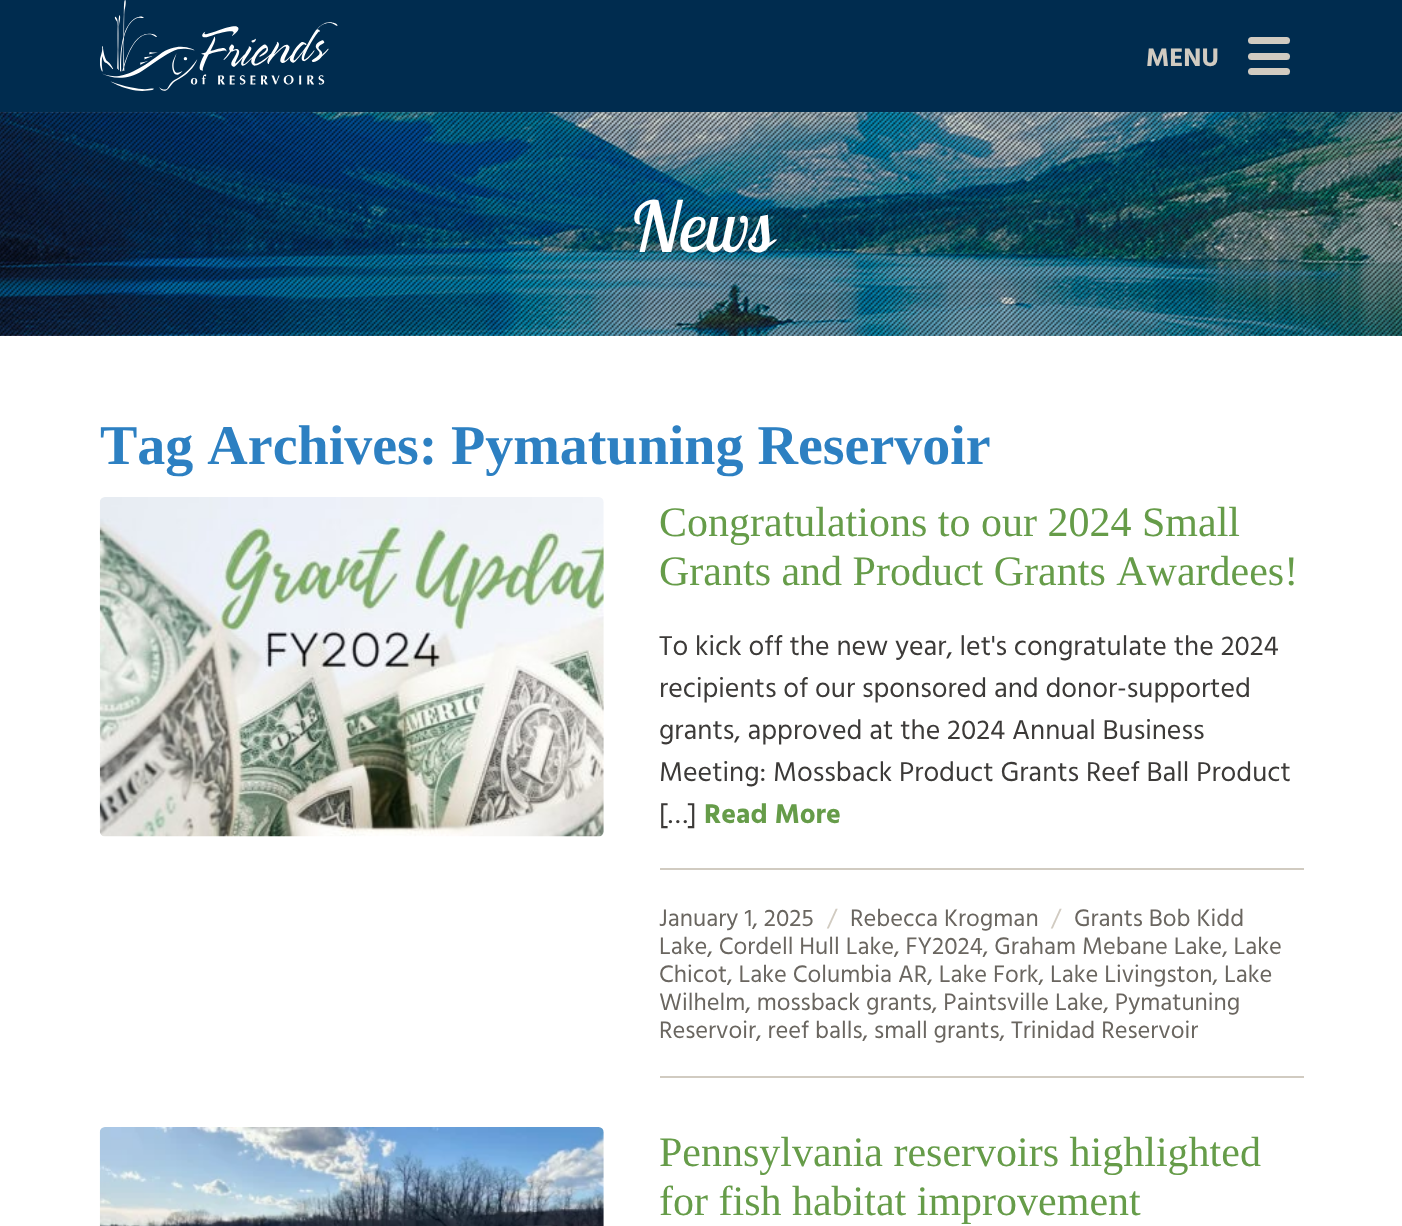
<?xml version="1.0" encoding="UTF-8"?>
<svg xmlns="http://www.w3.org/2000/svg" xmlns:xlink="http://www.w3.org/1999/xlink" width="1402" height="1226">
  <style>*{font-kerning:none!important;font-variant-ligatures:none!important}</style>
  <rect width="100%" height="100%" fill="#ffffff" />
  <rect width="1402" height="112" fill="#002c4f" />
  <image x="100" y="0" width="238" height="91" xlink:href="image1.png" />
  <rect x="1248" y="53" width="42" height="7" rx="3.5" fill="#d1cbc1" />
  <rect x="1248" y="37" width="42" height="7" rx="3.5" fill="#d1cbc1" />
  <rect x="1248" y="68" width="42" height="7" rx="3.5" fill="#d1cbc1" />
  <image x="0" y="112" width="1402" height="224" xlink:href="image2.png" />
  <image x="0" y="112" width="1402" height="224" xlink:href="image3.png" />
  <image x="99" y="497" width="505" height="340" xlink:href="image4.png" />
  <rect x="660" y="868" width="644" height="2" fill="#d1cbc1" />
  <rect x="660" y="1076" width="644" height="2" fill="#d1cbc1" />
  <image x="99" y="1127" width="505" height="99" xlink:href="image5.png" />
  <text x="1146" y="66" style="font-family: Hind Vadodara; font-size: 26px; font-weight: bold; fill: #d1cbc1">MENU</text>
  <text x="630" y="252" style="font-family: Lobster Two; font-size: 70px; font-style: italic; fill: #ffffff">News</text>
  <text x="100" y="464" style="font-family: Tinos; font-size: 56px; font-weight: bold; fill: #2d80c2">Tag Archives:</text>
  <text x="451" y="464" style="font-family: Tinos; font-size: 56px; font-weight: bold; fill: #2d80c2">Pymatuning Reservoir</text>
  <text x="659" y="536" style="font-family: Tinos; font-size: 42px; fill: #669c49">Congratulations to our 2024 Small</text>
  <text x="659" y="585" style="font-family: Tinos; font-size: 42px; fill: #669c49">Grants and Product Grants Awardees!</text>
  <text x="659" y="655" style="font-family: Hind Vadodara; font-size: 28px; fill: #3c3a38">To kick off the new year, let's congratulate the 2024</text>
  <text x="659" y="697" style="font-family: Hind Vadodara; font-size: 28px; fill: #3c3a38">recipients of our sponsored and donor-supported</text>
  <text x="659" y="739" style="font-family: Hind Vadodara; font-size: 28px; fill: #3c3a38">grants, approved at the 2024 Annual Business</text>
  <text x="659" y="781" style="font-family: Hind Vadodara; font-size: 28px; fill: #3c3a38">Meeting: Mossback Product Grants Reef Ball Product</text>
  <text x="659" y="823" style="font-family: Hind Vadodara; font-size: 28px; fill: #3c3a38">[…]</text>
  <text x="704" y="823" style="font-family: Hind Vadodara; font-size: 28px; font-weight: bold; fill: #669c49">Read More</text>
  <text x="659" y="926" style="font-family: Hind Vadodara; font-size: 24.5px; fill: #6a6660">January 1, 2025</text>
  <text x="827" y="926" style="font-family: Hind Vadodara; font-size: 24.5px; fill: #d1cbc1">/</text>
  <text x="850" y="926" style="font-family: Hind Vadodara; font-size: 24.5px; fill: #6a6660">Rebecca Krogman</text>
  <text x="1051" y="926" style="font-family: Hind Vadodara; font-size: 24.5px; fill: #d1cbc1">/</text>
  <text x="1074" y="926" style="font-family: Hind Vadodara; font-size: 24.5px; fill: #6a6660">Grants Bob Kidd</text>
  <text x="659" y="954" style="font-family: Hind Vadodara; font-size: 24.5px; fill: #6a6660">Lake, Cordell Hull Lake, FY2024, Graham Mebane Lake, Lake</text>
  <text x="659" y="982" style="font-family: Hind Vadodara; font-size: 24.5px; fill: #6a6660">Chicot, Lake Columbia AR, Lake Fork, Lake Livingston, Lake</text>
  <text x="659" y="1010" style="font-family: Hind Vadodara; font-size: 24.5px; fill: #6a6660">Wilhelm, mossback grants, Paintsville Lake, Pymatuning</text>
  <text x="659" y="1038" style="font-family: Hind Vadodara; font-size: 24.5px; fill: #6a6660">Reservoir, reef balls, small grants, Trinidad Reservoir</text>
  <text x="659" y="1166" style="font-family: Tinos; font-size: 42px; fill: #669c49">Pennsylvania reservoirs highlighted</text>
  <text x="659" y="1215" style="font-family: Tinos; font-size: 42px; fill: #669c49">for fish habitat improvement</text>
</svg>
